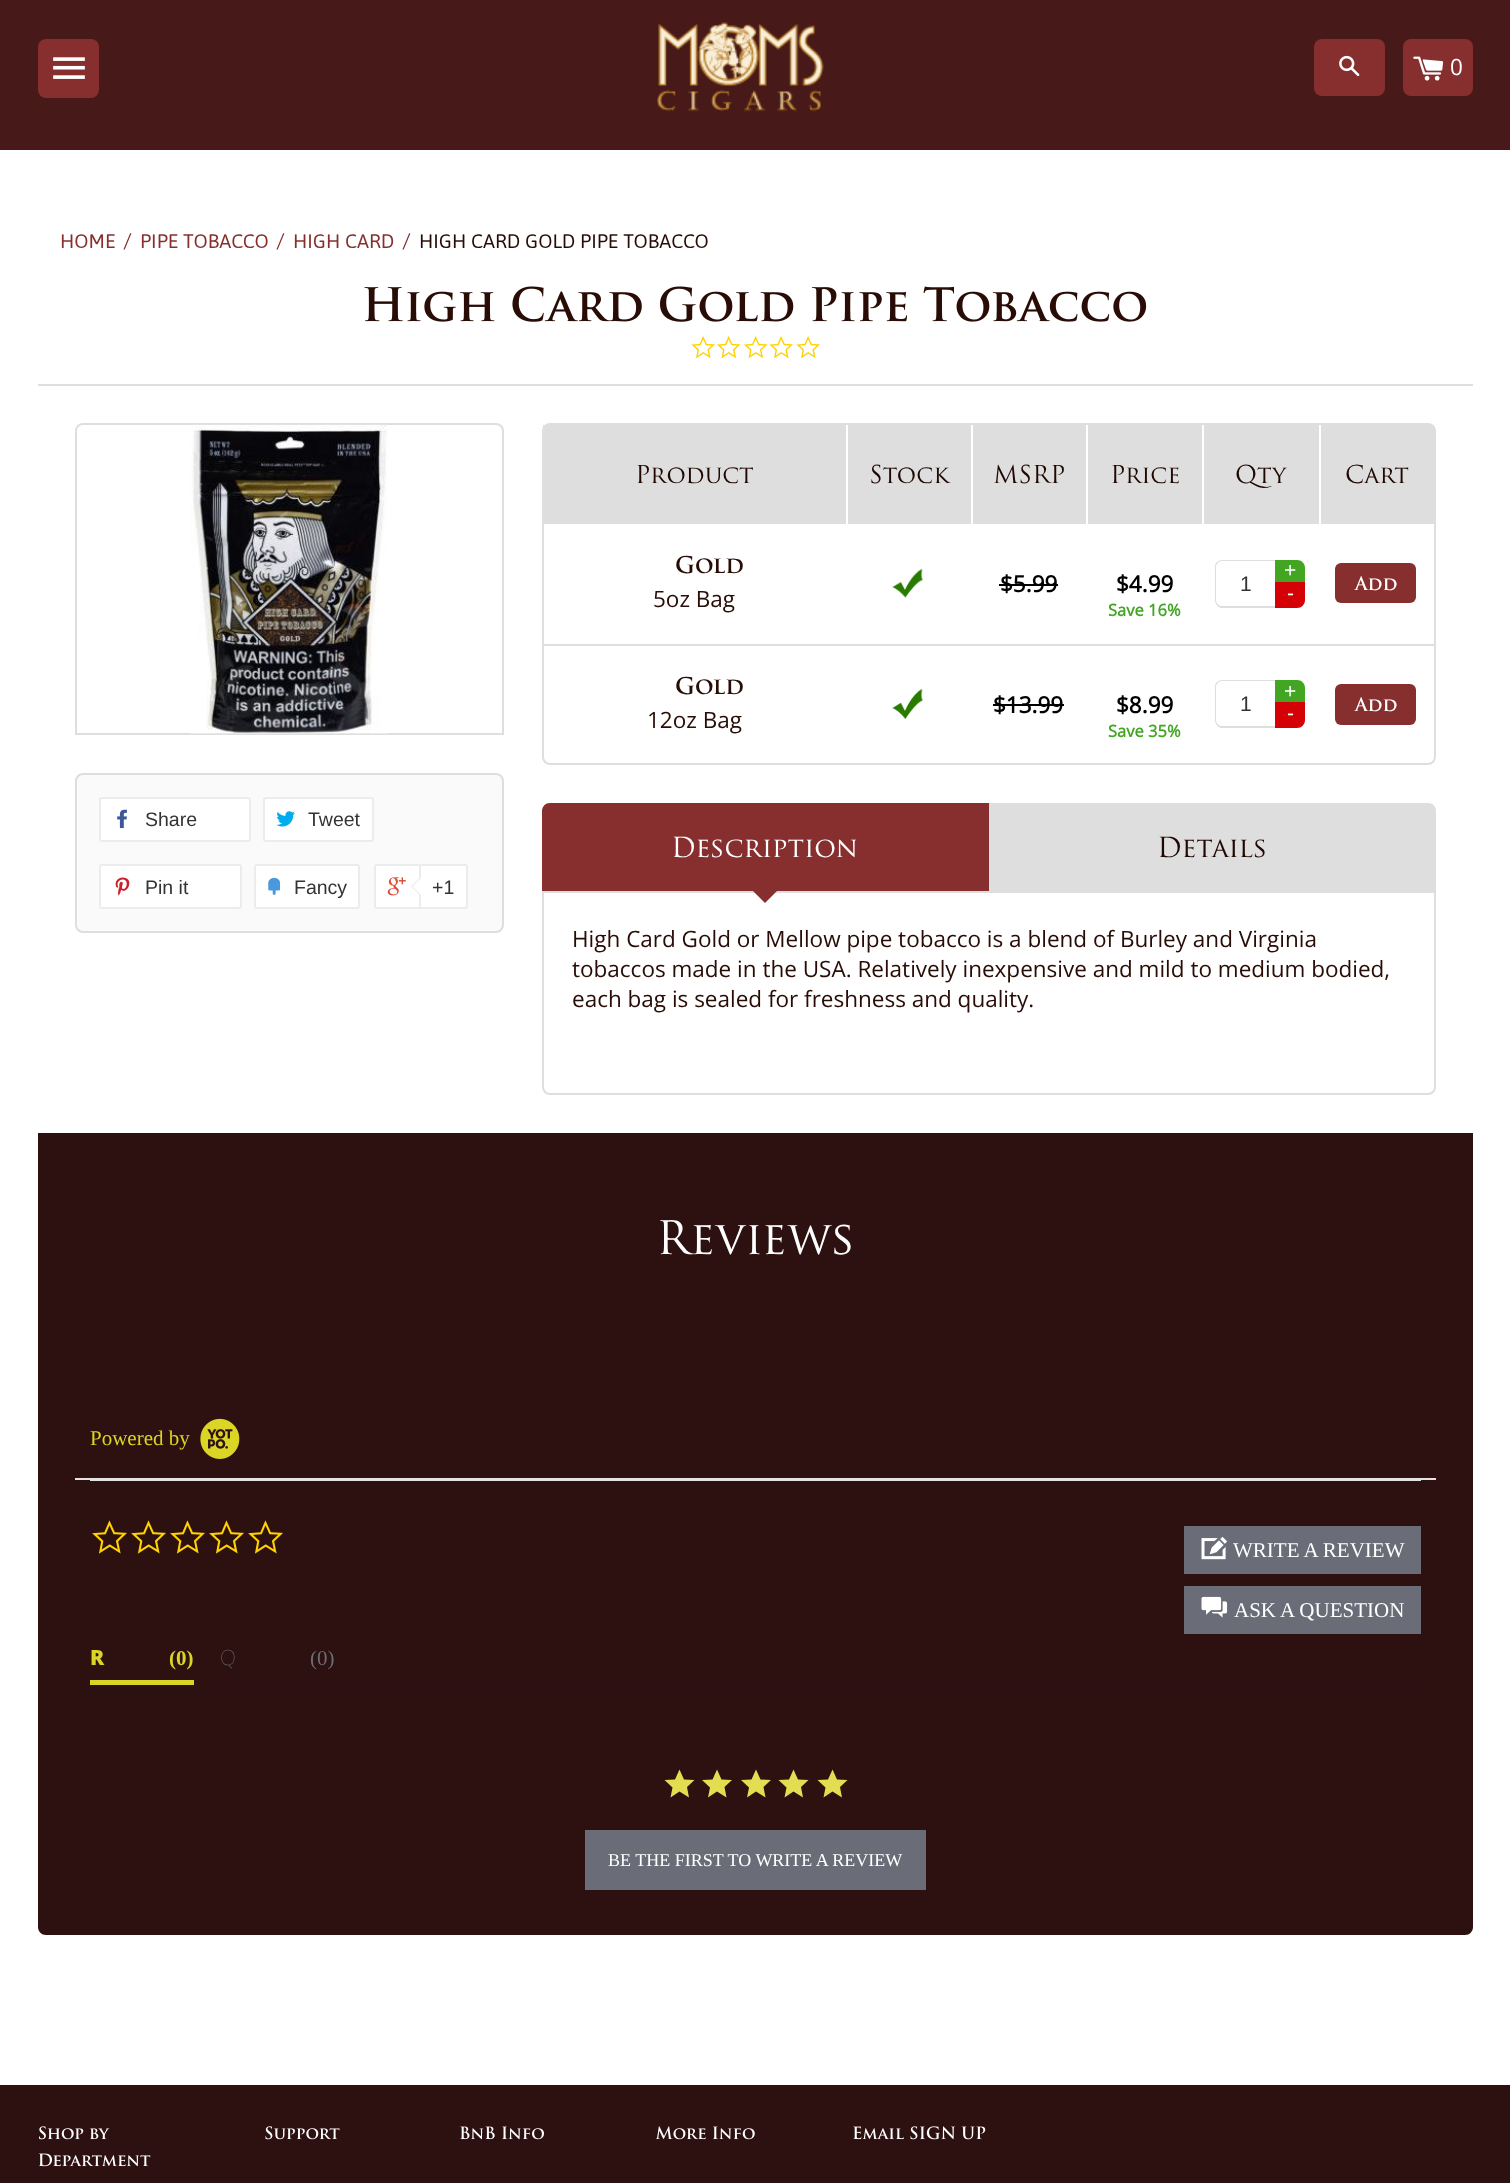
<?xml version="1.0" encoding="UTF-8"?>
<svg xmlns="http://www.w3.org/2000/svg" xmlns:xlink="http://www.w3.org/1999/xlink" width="1510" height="2183">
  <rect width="100%" height="100%" fill="#ffffff" />
  <rect width="1510" height="150" fill="#471918" />
  <rect x="38" y="39" width="61" height="59" rx="8" fill="#862f2e" />
  <image x="53" y="57" width="32" height="22" xlink:href="image1.png" />
  <image x="657" y="22" width="167" height="90" xlink:href="image2.png" />
  <rect x="1314" y="39" width="71" height="57" rx="8" fill="#862f2e" />
  <image x="1339" y="55" width="21" height="21" xlink:href="image3.png" />
  <rect x="1403" y="39" width="70" height="57" rx="8" fill="#862f2e" />
  <image x="1413" y="56" width="31" height="25" xlink:href="image4.png" />
  <rect x="38" y="384" width="1435" height="2" fill="#dedede" />
  <image x="364" y="286" width="783" height="36" xlink:href="image5.png" />
  <image x="691" y="336" width="24" height="23" xlink:href="image6.png" />
  <image x="717" y="336" width="24" height="23" xlink:href="image7.png" />
  <image x="744" y="336" width="24" height="23" xlink:href="image7.png" />
  <image x="769" y="336" width="24" height="23" xlink:href="image6.png" />
  <image x="796" y="336" width="24" height="23" xlink:href="image6.png" />
  <path d="M 83 424 h 413 c 4 0 7 3 7 7 v 303 h -427 v -303 c 0 -4 3 -7 7 -7 z" fill="none" stroke="#dedede" stroke-width="2" />
  <image x="190" y="424" width="198" height="310" xlink:href="image8.png" />
  <rect x="76" y="774" width="427" height="158" rx="7" fill="#fafafa" stroke="#dedede" stroke-width="2" />
  <rect x="100" y="798" width="150" height="43" rx="2" fill="#ffffff" stroke="#ececec" stroke-width="2" />
  <image x="117" y="809" width="10" height="20" xlink:href="image9.png" />
  <rect x="264" y="798" width="109" height="43" rx="2" fill="#ffffff" stroke="#ececec" stroke-width="2" />
  <image x="276" y="811" width="19" height="16" xlink:href="image10.png" />
  <rect x="100" y="865" width="141" height="43" rx="2" fill="#ffffff" stroke="#ececec" stroke-width="2" />
  <image x="115" y="877" width="15" height="19" xlink:href="image11.png" />
  <rect x="255" y="865" width="104" height="43" rx="2" fill="#ffffff" stroke="#ececec" stroke-width="2" />
  <image x="268" y="877" width="13" height="18" xlink:href="image12.png" />
  <rect x="375" y="865" width="91" height="43" rx="2" fill="#ffffff" stroke="#ececec" stroke-width="2" />
  <image x="387" y="877" width="19" height="19" xlink:href="image13.png" />
  <path d="M 420 865 h 45 c 1 0 2 1 2 2 v 39 c 0 1 -1 2 -2 2 h -45 z" fill="#ffffff" stroke="#ececec" stroke-width="2" />
  <path d="M 420 877.5 v 18 l -9 -9 z" fill="#ececec" />
  <path d="M 421.5 877.5 v 18 l -9 -9 z" fill="#ffffff" />
  <rect x="543" y="424" width="892" height="340" rx="7" fill="none" stroke="#dedede" stroke-width="2" />
  <rect x="543" y="425" width="891" height="99" fill="#dedede" />
  <rect x="846" y="425" width="2" height="99" fill="#ffffff" />
  <rect x="971" y="425" width="2" height="99" fill="#ffffff" />
  <rect x="1086" y="425" width="2" height="99" fill="#ffffff" />
  <rect x="1202" y="425" width="2" height="99" fill="#ffffff" />
  <rect x="1319" y="425" width="2" height="99" fill="#ffffff" />
  <image x="892" y="569" width="31" height="29" xlink:href="image14.png" />
  <rect x="999" y="584" width="59" height="2" fill="#000000" />
  <path d="M 1222 560 h 53 v 48 h -53 c -4 0 -7 -4 -7 -8 v -33 c 0 -4 3 -7 7 -7 z m 0 1 h 53 v 45 h -53 c -3 0 -6 -3 -6 -6 v -33 c 0 -3 3 -6 6 -6 z" fill="#dedede" fill-rule="evenodd" />
  <path d="M 1275 560 h 22 c 4.5 0 8 3.5 8 8 v 14 h -30 z" fill="#42a623" />
  <path d="M 1275 582 h 30 v 18 c 0 4.5 -3.5 8 -8 8 h -22 z" fill="#d40206" />
  <rect x="1335" y="563" width="81" height="40" rx="6" fill="#862f2e" />
  <rect x="543" y="644" width="891" height="2" fill="#dedede" />
  <image x="892" y="689" width="31" height="30" xlink:href="image15.png" />
  <rect x="993" y="704" width="71" height="2" fill="#000000" />
  <path d="M 1222 680 h 53 v 48 h -53 c -4 0 -7 -4 -7 -8 v -33 c 0 -4 3 -7 7 -7 z m 0 1 h 53 v 45 h -53 c -3 0 -6 -3 -6 -6 v -33 c 0 -3 3 -6 6 -6 z" fill="#dedede" fill-rule="evenodd" />
  <path d="M 1275 680 h 22 c 4.5 0 8 3.5 8 8 v 14 h -30 z" fill="#42a623" />
  <path d="M 1275 702 h 30 v 18 c 0 4.5 -3.5 8 -8 8 h -22 z" fill="#d40206" />
  <rect x="1335" y="684" width="81" height="41" rx="6" fill="#862f2e" />
  <path d="M 550 803 h 439 v 88 h -447 v -80 c 0 -4.5 3.5 -8 8 -8 z" fill="#862f2e" />
  <path d="M 543 892 h 892 v 195 c 0 4 -3 7 -7 7 h -878 c -4 0 -7 -3 -7 -7 z" fill="none" stroke="#dedede" stroke-width="2" />
  <path d="M 753 891 h 24 l -12 12 z" fill="#862f2e" />
  <path d="M 989 803 h 439 c 4.5 0 8 3.5 8 8 v 80 h -447 z" fill="#dedede" />
  <path d="M 38 1133 h 1435 v 794 c 0 4.5 -3.5 8 -8 8 h -1419 c -4.5 0 -8 -3.5 -8 -8 z" fill="#2d1010" />
  <rect x="75" y="1478" width="1361" height="2" fill="#e3e3e3" />
  <image x="200" y="1418" width="40" height="41" xlink:href="image16.png" />
  <rect x="90" y="1480" width="1331" height="1" fill="#e3e3e3" />
  <image x="92" y="1520" width="35" height="34" xlink:href="image17.png" />
  <image x="131" y="1520" width="35" height="34" xlink:href="image17.png" />
  <image x="170" y="1520" width="35" height="34" xlink:href="image17.png" />
  <image x="209" y="1520" width="35" height="34" xlink:href="image17.png" />
  <image x="248" y="1520" width="35" height="34" xlink:href="image17.png" />
  <rect x="1184" y="1526" width="237" height="48" fill="#6a6c77" />
  <image x="1201" y="1536" width="27" height="24" xlink:href="image18.png" />
  <rect x="1184" y="1586" width="237" height="48" fill="#6a6c77" />
  <image x="1201" y="1596" width="27" height="22" xlink:href="image19.png" />
  <rect x="75" y="1691" width="1361" height="2" fill="#291213" />
  <rect x="90" y="1680" width="104" height="5" fill="#dbd525" />
  <path d="M 689 1797.5 l -9.5 -6 l -9 6 l 2 -10 l -8 -7.5 l 10.5 -0.5 l 4.5 -10 l 4.5 10 l 10.5 0.5 l -7.5 7 z" fill="#e2dd51" />
  <path d="M 726.5 1797.5 l -9.5 -6 l -9 6 l 2 -10 l -8 -7.5 l 10.5 -0.5 l 4.5 -10 l 4.5 10 l 10.5 0.5 l -7.5 7 z" fill="#e2dd51" />
  <path d="M 765.5 1797.5 l -9.5 -6 l -9 6 l 2 -10 l -8 -7.5 l 10.5 -0.5 l 4.5 -10 l 4.5 10 l 10.5 0.5 l -7.5 7 z" fill="#e2dd51" />
  <path d="M 803 1797.5 l -9.5 -6 l -9 6 l 2 -10 l -8 -7.5 l 10.5 -0.5 l 4.5 -10 l 4.5 10 l 10.5 0.5 l -7.5 7 z" fill="#e2dd51" />
  <path d="M 842 1797.5 l -9.5 -6 l -9 6 l 2 -10 l -8 -7.5 l 10.5 -0.5 l 4.5 -10 l 4.5 10 l 10.5 0.5 l -7.5 7 z" fill="#e2dd51" />
  <rect x="585" y="1830" width="341" height="60" fill="#6a6c77" />
  <rect y="2085" width="1510" height="98" fill="#2d1010" />
  <image x="39" y="2126" width="71" height="14" xlink:href="image20.png" />
  <image x="38" y="2153" width="113" height="14" xlink:href="image21.png" />
  <image x="265" y="2126" width="75" height="14" xlink:href="image22.png" />
  <image x="460" y="2126" width="84" height="14" xlink:href="image23.png" />
  <image x="655" y="2126" width="100" height="14" xlink:href="image24.png" />
  <image x="853" y="2126" width="133" height="14" xlink:href="image25.png" />
  <text x="1450" y="75" style="font-family: Open Sans; font-size: 22.5px; fill: #ffffff">0</text>
  <text x="60" y="248" style="font-family: Asap; font-size: 19.5px; fill: #862f2e">HOME</text>
  <text x="123" y="248" style="font-family: Asap; font-size: 21px; fill: #862f2e">/</text>
  <text x="140" y="248" style="font-family: Asap; font-size: 19.5px; fill: #862f2e">PIPE TOBACCO</text>
  <text x="276" y="248" style="font-family: Asap; font-size: 21px; fill: #862f2e">/</text>
  <text x="293" y="248" style="font-family: Asap; font-size: 19.5px; fill: #862f2e">HIGH CARD</text>
  <text x="402" y="248" style="font-family: Asap; font-size: 21px; fill: #862f2e">/</text>
  <text x="419" y="248" style="font-family: Asap; font-size: 19.5px; fill: #280c05">HIGH CARD GOLD PIPE TOBACCO</text>
  <text x="145" y="826" style="font-family: Liberation Sans; font-size: 19.5px; fill: #333333">Share</text>
  <text x="308" y="826" style="font-family: Liberation Sans; font-size: 19.5px; fill: #333333">Tweet</text>
  <text x="145" y="894" style="font-family: Liberation Sans; font-size: 19.5px; fill: #333333">Pin it</text>
  <text x="294" y="894" style="font-family: Liberation Sans; font-size: 19.5px; fill: #333333">Fancy</text>
  <text x="432" y="894" style="font-family: Liberation Sans; font-size: 19.5px; fill: #333333">+1</text>
  <text x="635" y="483" style="font-family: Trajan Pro; font-size: 24px; fill: #1f0802">Product</text>
  <text x="869" y="483" style="font-family: Trajan Pro; font-size: 24px; fill: #1f0802">Stock</text>
  <text x="993" y="483" style="font-family: Trajan Pro; font-size: 24px; fill: #1f0802">MSRP</text>
  <text x="1110" y="483" style="font-family: Trajan Pro; font-size: 24px; fill: #1f0802">Price</text>
  <text x="1235" y="483" style="font-family: Trajan Pro; font-size: 24px; fill: #1f0802">Qty</text>
  <text x="1345" y="483" style="font-family: Trajan Pro; font-size: 24px; fill: #1f0802">Cart</text>
  <text x="675" y="573" style="font-family: Trajan Pro; font-size: 22.5px; font-weight: bold; fill: #280c05">Gold</text>
  <text x="653" y="607" style="font-family: Open Sans; font-size: 22.5px; fill: #280c05">5oz Bag</text>
  <text x="1000" y="592" style="font-family: Open Sans; font-size: 22.5px; font-weight: bold; fill: #000000">$5.99</text>
  <text x="1116" y="592" style="font-family: Open Sans; font-size: 22.5px; font-weight: bold; fill: #000000">$4.99</text>
  <text x="1108" y="616" style="font-family: Open Sans; font-size: 16.5px; font-weight: bold; fill: #42a623">Save 16%</text>
  <text x="1240" y="591" style="font-family: Liberation Sans; font-size: 21px; fill: #333333">1</text>
  <text x="1284" y="577" style="font-family: Liberation Sans; font-size: 21px; fill: #ffffff">+</text>
  <text x="1287" y="600" style="font-family: Liberation Sans; font-size: 21px; fill: #ffffff">-</text>
  <text x="1355" y="590" style="font-family: Trajan Pro; font-size: 18px; font-weight: bold; fill: #ffffff">Add</text>
  <text x="675" y="694" style="font-family: Trajan Pro; font-size: 22.5px; font-weight: bold; fill: #280c05">Gold</text>
  <text x="647" y="728" style="font-family: Open Sans; font-size: 22.5px; fill: #280c05">12oz Bag</text>
  <text x="993" y="713" style="font-family: Open Sans; font-size: 22.5px; font-weight: bold; fill: #000000">$13.99</text>
  <text x="1116" y="713" style="font-family: Open Sans; font-size: 22.5px; font-weight: bold; fill: #000000">$8.99</text>
  <text x="1108" y="737" style="font-family: Open Sans; font-size: 16.5px; font-weight: bold; fill: #42a623">Save 35%</text>
  <text x="1240" y="711" style="font-family: Liberation Sans; font-size: 21px; fill: #333333">1</text>
  <text x="1284" y="698" style="font-family: Liberation Sans; font-size: 21px; fill: #ffffff">+</text>
  <text x="1287" y="720" style="font-family: Liberation Sans; font-size: 21px; fill: #ffffff">-</text>
  <text x="1355" y="711" style="font-family: Trajan Pro; font-size: 18px; font-weight: bold; fill: #ffffff">Add</text>
  <text x="671" y="857" style="font-family: Trajan Pro; font-size: 27px; fill: #ffffff">Description</text>
  <text x="1157" y="857" style="font-family: Trajan Pro; font-size: 27px; fill: #1f0802">Details</text>
  <text x="572" y="947" style="font-family: Open Sans; font-size: 22.5px; fill: #280c05">High Card Gold or Mellow pipe tobacco is a blend of Burley and Virginia</text>
  <text x="572" y="977" style="font-family: Open Sans; font-size: 22.5px; fill: #280c05">tobaccos made in the USA. Relatively inexpensive and mild to medium bodied,</text>
  <text x="572" y="1007" style="font-family: Open Sans; font-size: 22.5px; fill: #280c05">each bag is sealed for freshness and quality.</text>
  <text x="656" y="1254" style="font-family: Trajan Pro; font-size: 45px; fill: #ffffff">Reviews</text>
  <text x="90" y="1445" style="font-family: Liberation Serif; font-size: 21px; fill: #dbd525">Powered by</text>
  <text x="1233" y="1557" style="font-family: Liberation Serif; font-size: 21px; fill: #ffffff">WRITE A REVIEW</text>
  <text x="1234" y="1617" style="font-family: Liberation Serif; font-size: 21px; fill: #ffffff">ASK A QUESTION</text>
  <text x="90" y="1665" style="font-family: Noto Sans; font-size: 21px; font-weight: 900; fill: #dbd525">R</text>
  <text x="169" y="1665" style="font-family: Liberation Serif; font-size: 21px; font-weight: bold; fill: #dbd525">(0)</text>
  <text x="220" y="1665" style="font-family: Noto Sans; font-size: 21px; font-weight: 100; fill: #6b6d76">Q</text>
  <text x="310" y="1665" style="font-family: Liberation Serif; font-size: 21px; fill: #6b6d76">(0)</text>
  <text x="608" y="1866" style="font-family: Liberation Serif; font-size: 18px; fill: #ffffff">BE THE FIRST TO WRITE A REVIEW</text>
</svg>
